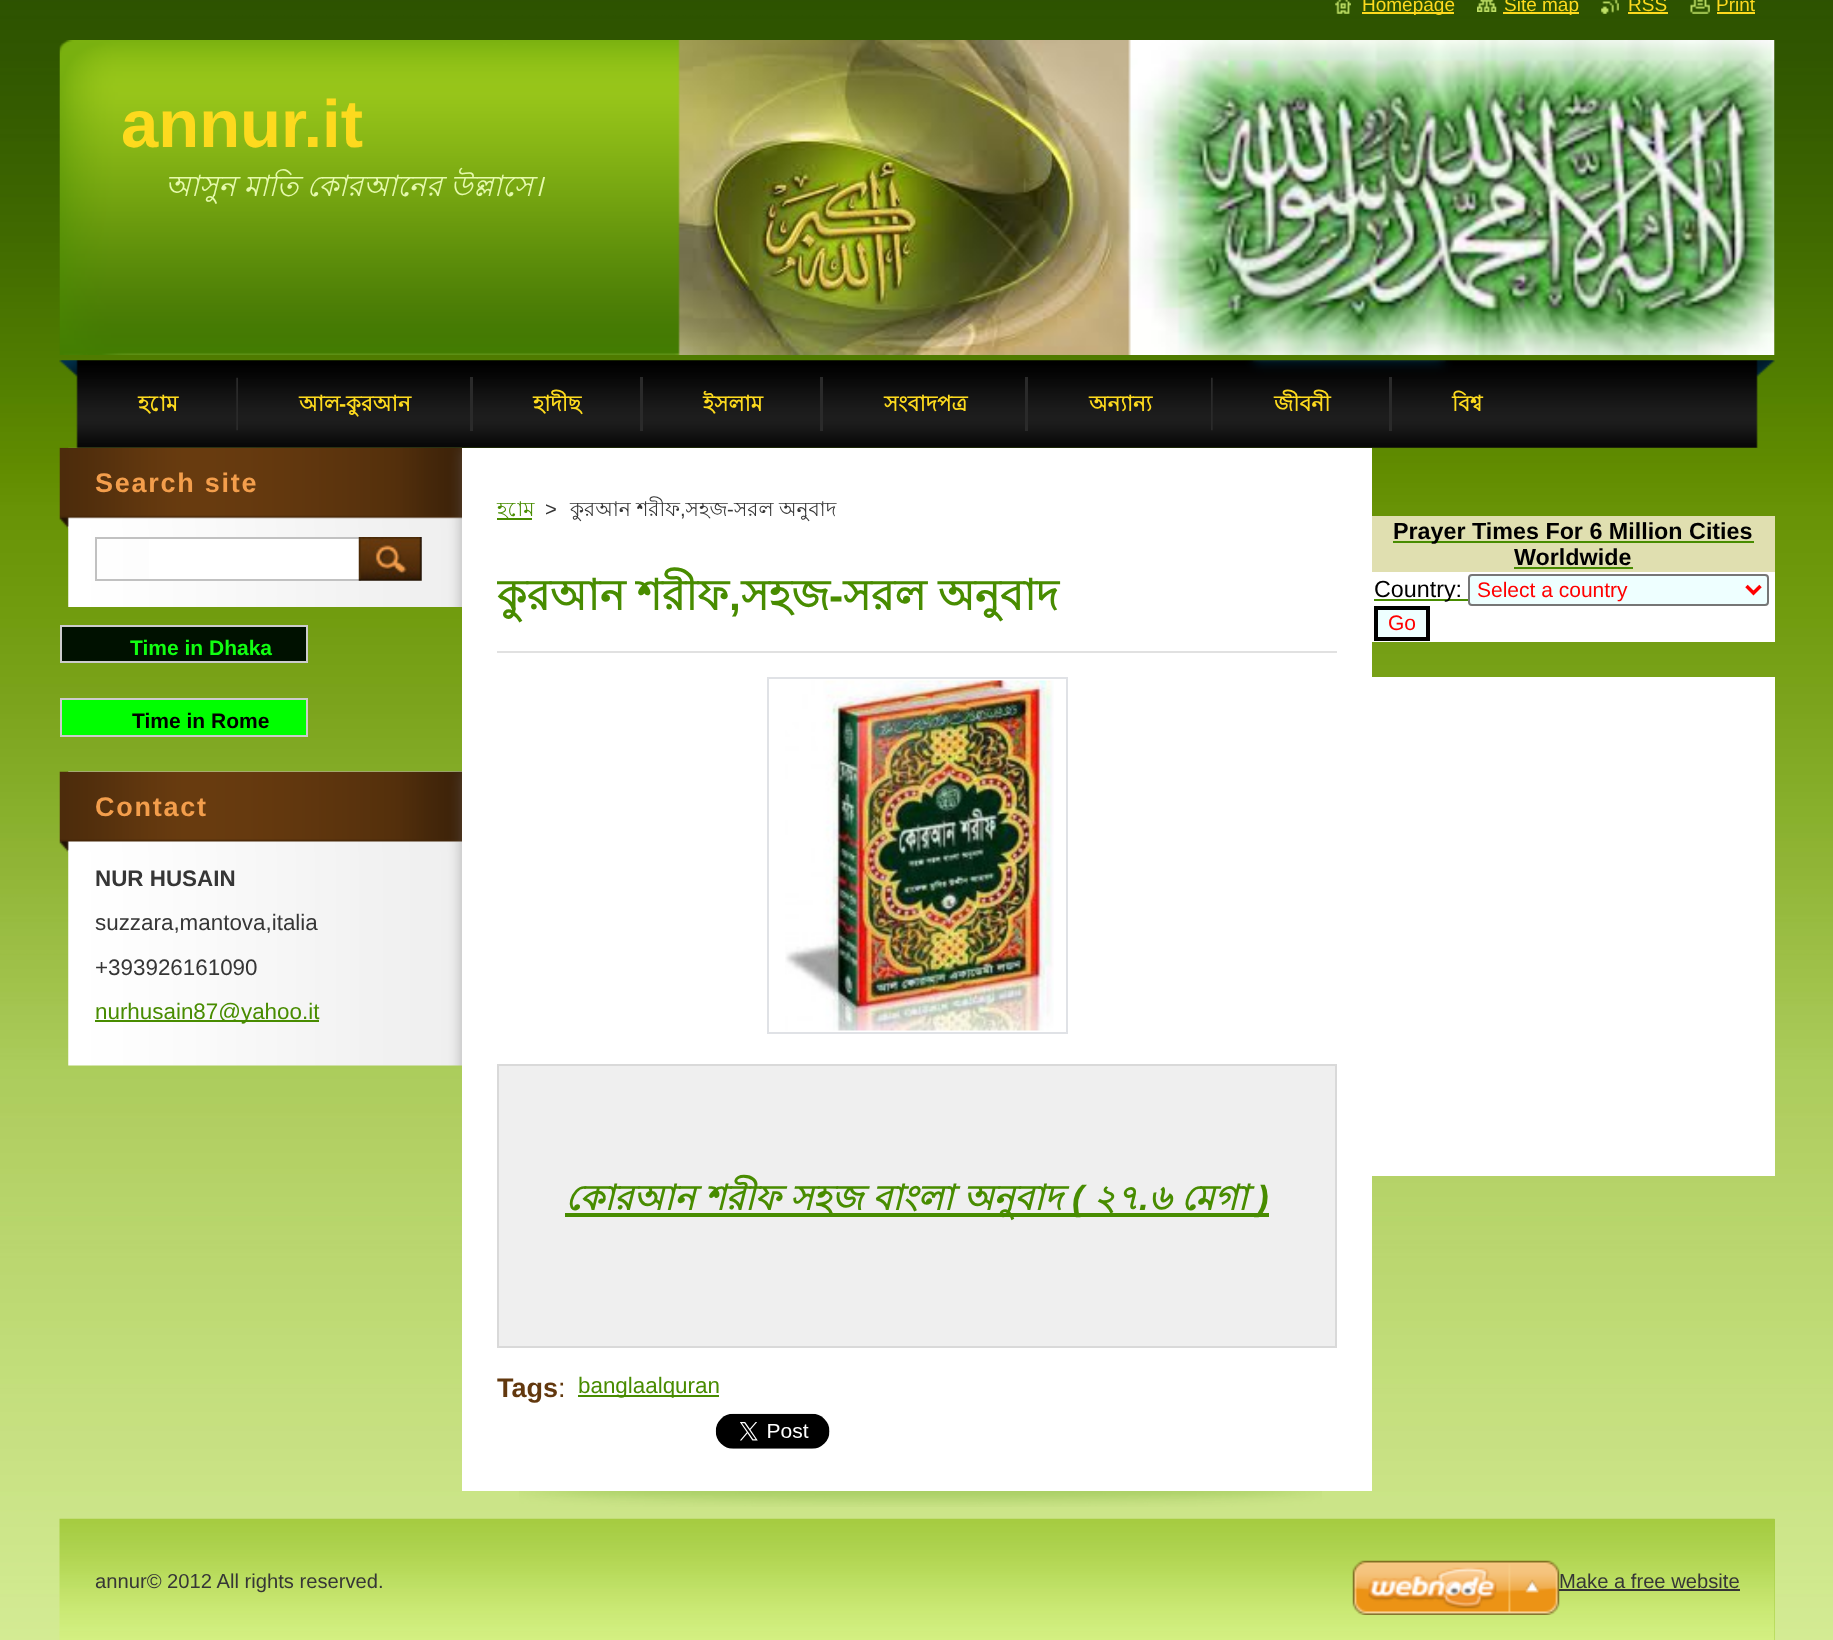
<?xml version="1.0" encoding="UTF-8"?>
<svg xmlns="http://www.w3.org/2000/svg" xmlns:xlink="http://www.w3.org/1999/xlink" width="1833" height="1640">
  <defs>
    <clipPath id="clip1"><rect x="497" y="564" width="840" height="892" /></clipPath>
  </defs>
  <rect width="100%" height="100%" fill="#ffffff" />
  <image x="0" y="0" width="1833" height="1640" xlink:href="image1.png" />
  <image x="1335" y="0" width="16" height="14" xlink:href="image2.png" />
  <rect x="1362" y="12" width="92" height="2" fill="#fdda1e" />
  <image x="1477" y="0" width="20" height="12" xlink:href="image3.png" />
  <rect x="1503" y="12" width="76" height="2" fill="#fdda1e" />
  <image x="1601" y="0" width="18" height="14" xlink:href="image4.png" />
  <rect x="1628" y="12" width="40" height="2" fill="#fdda1e" />
  <image x="1690" y="0" width="20" height="14" xlink:href="image5.png" />
  <rect x="1717" y="12" width="38" height="2" fill="#fdda1e" />
  <image x="59" y="40" width="1716" height="315" xlink:href="image6.png" />
  <image x="59" y="360" width="1716" height="88" xlink:href="image7.png" />
  <image x="236" y="377" width="2" height="54" xlink:href="image8.png" />
  <rect x="470" y="377" width="3" height="54" fill="#2a2a2a" />
  <rect x="640" y="377" width="3" height="54" fill="#2a2a2a" />
  <rect x="820" y="377" width="3" height="54" fill="#2a2a2a" />
  <rect x="1025" y="377" width="3" height="54" fill="#2a2a2a" />
  <image x="1211" y="377" width="2" height="54" xlink:href="image9.png" />
  <rect x="1389" y="377" width="3" height="54" fill="#2a2a2a" />
  <image x="68" y="447" width="394" height="160" xlink:href="image10.png" />
  <image x="59" y="447" width="403" height="82" xlink:href="image11.png" />
  <rect x="149" y="539" width="210" height="40" fill="#ffffff" />
  <rect x="96" y="538" width="264" height="42" fill="none" stroke="#c1c1c1" stroke-width="2" />
  <image x="358" y="537" width="64" height="44" xlink:href="image12.png" />
  <rect x="61" y="626" width="246" height="36" fill="#001100" stroke="#cccccc" stroke-width="2" />
  <rect x="61" y="699" width="246" height="37" fill="#00ff00" stroke="#cccccc" stroke-width="2" />
  <image x="68" y="771" width="394" height="295" xlink:href="image13.png" />
  <image x="59" y="771" width="403" height="81" xlink:href="image14.png" />
  <rect x="95" y="1020" width="224" height="2" fill="#488c00" />
  <image x="519" y="1491" width="803" height="16" xlink:href="image15.png" />
  <rect x="462" y="448" width="910" height="1043" fill="#ffffff" />
  <rect x="497" y="518" width="35" height="2" fill="#488c00" />
  <rect x="497" y="651" width="840" height="2" fill="#e1e1e1" />
  <rect x="768" y="678" width="299" height="355" fill="none" stroke="#e0e2e6" stroke-width="2" />
  <image x="785" y="680" width="269" height="351" xlink:href="image16.png" />
  <rect x="498" y="1065" width="838" height="282" fill="#efefef" stroke="#d9d9d9" stroke-width="2" />
  <rect x="565" y="1213" width="704" height="4" fill="#488c00" />
  <rect x="578" y="1395" width="141" height="2" fill="#488c00" />
  <image x="715" y="1413" width="115" height="36" xlink:href="image17.png" />
  <rect x="1372" y="516" width="403" height="56" fill="#e0dfb0" />
  <rect x="1393" y="541" width="361" height="2" fill="#488c00" />
  <rect x="1514" y="567" width="119" height="2" fill="#488c00" />
  <rect x="1372" y="572" width="403" height="70" fill="#ffffff" />
  <rect x="1374" y="599" width="94" height="2" fill="#488c00" />
  <rect x="1469" y="575" width="299" height="30" rx="3" fill="#eeffff" stroke="#767676" stroke-width="2" />
  <path d="M 1746.5 586 l 7 7 l 7 -7" fill="none" stroke="#ff0000" stroke-width="3.5" />
  <rect x="1376" y="608" width="52" height="31" fill="#eeffff" stroke="#000000" stroke-width="4" />
  <rect x="1372" y="677" width="403" height="499" fill="#ffffff" />
  <rect x="1774" y="1519" width="1" height="121" fill="#a5cc42" />
  <image x="59" y="1518" width="1716" height="122" xlink:href="image18.png" />
  <rect x="1559" y="1589" width="181" height="2" fill="#363636" />
  <image x="1352" y="1560" width="208" height="55" xlink:href="image19.png" />
  <text x="1362" y="11" style="font-family: Liberation Sans; font-size: 19px; fill: #fdda1e">Homepage</text>
  <text x="1504" y="11" style="font-family: Liberation Sans; font-size: 19px; fill: #fdda1e">Site map</text>
  <text x="1628" y="11" style="font-family: Liberation Sans; font-size: 19px; fill: #fdda1e">RSS</text>
  <text x="1716" y="11" style="font-family: Liberation Sans; font-size: 19px; fill: #fdda1e">Print</text>
  <text x="121" y="147" style="font-family: Liberation Sans; font-size: 67px; font-weight: bold; fill: #fdda1e">annur.it</text>
  <text x="165" y="196" style="font-family: Lohit Bengali; font-size: 29.1px; font-style: italic; fill: #e6faad">আসুন মাতি কোরআনের উল্লাসে।</text>
  <text x="138" y="411" style="font-family: Lohit Bengali; font-size: 21.5px; font-weight: bold; fill: #fdda1e">হোম</text>
  <text x="299" y="411" style="font-family: Lohit Bengali; font-size: 21.5px; font-weight: bold; fill: #fdda1e">আল</text>
  <text x="339" y="411" style="font-family: Liberation Sans; font-size: 21.5px; font-weight: bold; fill: #fdda1e">-</text>
  <text x="346" y="411" style="font-family: Lohit Bengali; font-size: 21.5px; font-weight: bold; fill: #fdda1e">কুরআন</text>
  <text x="533" y="411" style="font-family: Lohit Bengali; font-size: 21.5px; font-weight: bold; fill: #fdda1e">হাদীছ</text>
  <text x="703" y="411" style="font-family: Lohit Bengali; font-size: 21.5px; font-weight: bold; fill: #fdda1e">ইসলাম</text>
  <text x="884" y="411" style="font-family: Lohit Bengali; font-size: 21.5px; font-weight: bold; fill: #fdda1e">সংবাদপত্র</text>
  <text x="1089" y="411" style="font-family: Lohit Bengali; font-size: 21.5px; font-weight: bold; fill: #fdda1e">অন্যান্য</text>
  <text x="1274" y="411" style="font-family: Lohit Bengali; font-size: 21.5px; font-weight: bold; fill: #fdda1e">জীবনী</text>
  <text x="1452" y="411" style="font-family: Lohit Bengali; font-size: 21.5px; font-weight: bold; fill: #fdda1e">বিশ্ব</text>
  <text x="95" y="492" style="font-family: Liberation Sans; font-size: 27px; font-weight: bold; letter-spacing: 1.75px; fill: #f39e4c">Search site</text>
  <text x="130" y="655" style="font-family: Liberation Sans; font-size: 21px; font-weight: bold; fill: #11ff11">Time in Dhaka</text>
  <text x="132" y="728" style="font-family: Liberation Sans; font-size: 21px; font-weight: bold; fill: #000000">Time in Rome</text>
  <text x="95" y="816" style="font-family: Liberation Sans; font-size: 27px; font-weight: bold; letter-spacing: 1.75px; fill: #f39e4c">Contact</text>
  <text x="95" y="886" style="font-family: Liberation Sans; font-size: 22.4px; font-weight: bold; fill: #363636">NUR HUSAIN</text>
  <text x="95" y="930" style="font-family: Liberation Sans; font-size: 22.4px; fill: #363636">suzzara,mantova,italia</text>
  <text x="95" y="975" style="font-family: Liberation Sans; font-size: 22.4px; fill: #363636">+393926161090</text>
  <text x="95" y="1019" style="font-family: Liberation Sans; font-size: 22.4px; fill: #488c00">nurhusain87@yahoo.it</text>
  <text x="497" y="516" style="font-family: Lohit Bengali; font-size: 20.2px; fill: #488c00">হোম</text>
  <text x="545" y="516" style="font-family: Liberation Sans; font-size: 20.2px; fill: #363636">&gt;</text>
  <text x="570" y="516" style="font-family: Lohit Bengali; font-size: 20.2px; fill: #363636">কুরআন শরীফ সহজ</text>
  <text x="727" y="516" style="font-family: Liberation Sans; font-size: 20.2px; fill: #363636">-</text>
  <text x="734" y="516" style="font-family: Lohit Bengali; font-size: 20.2px; fill: #363636">সরল অনুবাদ</text>
  <text x="680" y="516" style="font-family: Liberation Sans; font-size: 20.2px; fill: #363636">,</text>
  <g clip-path="url(#clip1)">
    <text x="497" y="610" style="font-family: Lohit Bengali; font-size: 42.5px; font-weight: bold; fill: #488c00">কুরআন শরীফ</text>
  </g>
  <text x="741" y="610" style="font-family: Lohit Bengali; font-size: 42.5px; font-weight: bold; fill: #488c00">সহজ</text>
  <text x="829" y="610" style="font-family: Liberation Sans; font-size: 42.5px; font-weight: bold; fill: #488c00">-</text>
  <text x="843" y="610" style="font-family: Lohit Bengali; font-size: 42.5px; font-weight: bold; fill: #488c00">সরল অনুবাদ</text>
  <text x="729" y="610" style="font-family: Liberation Sans; font-size: 42.5px; font-weight: bold; fill: #488c00">,</text>
  <text x="565" y="1210" style="font-family: Lohit Bengali; font-size: 35px; font-weight: bold; font-style: italic; fill: #488c00">কোরআন শরীফ সহজ বাংলা অনুবাদ</text>
  <text x="1072" y="1210" style="font-family: Liberation Sans; font-size: 35px; font-weight: bold; font-style: italic; fill: #488c00">(</text>
  <text x="1093" y="1210" style="font-family: Lohit Bengali; font-size: 35px; font-weight: bold; font-style: italic; fill: #488c00">২৭ ৬ মেগা</text>
  <text x="1257" y="1210" style="font-family: Liberation Sans; font-size: 35px; font-weight: bold; font-style: italic; fill: #488c00">)</text>
  <text x="1139" y="1210" style="font-family: Liberation Sans; font-size: 35px; font-weight: bold; font-style: italic; fill: #488c00">.</text>
  <text x="497" y="1397" style="font-family: Liberation Sans; font-size: 27px; font-weight: bold; fill: #62380e">Tags</text>
  <text x="558" y="1397" style="font-family: Liberation Sans; font-size: 27px; fill: #62380e">:</text>
  <text x="578" y="1393" style="font-family: Liberation Sans; font-size: 22.4px; fill: #488c00">banglaalquran</text>
  <text x="1393" y="539" style="font-family: Liberation Sans; font-size: 23.3px; font-weight: bold; fill: #000000">Prayer Times For 6 Million Cities</text>
  <text x="1514" y="565" style="font-family: Liberation Sans; font-size: 23.3px; font-weight: bold; fill: #000000">Worldwide</text>
  <text x="1374" y="597" style="font-family: Liberation Sans; font-size: 23.3px; fill: #000000">Country:</text>
  <text x="1477" y="597" style="font-family: Liberation Sans; font-size: 21px; fill: #ff0000">Select a country</text>
  <text x="1388" y="630" style="font-family: Liberation Sans; font-size: 21px; fill: #ff0000">Go</text>
  <text x="95" y="1588" style="font-family: Liberation Sans; font-size: 20.2px; fill: #363636">annur© 2012 All rights reserved.</text>
  <text x="1559" y="1588" style="font-family: Liberation Sans; font-size: 20.2px; fill: #363636">Make a free website</text>
</svg>
